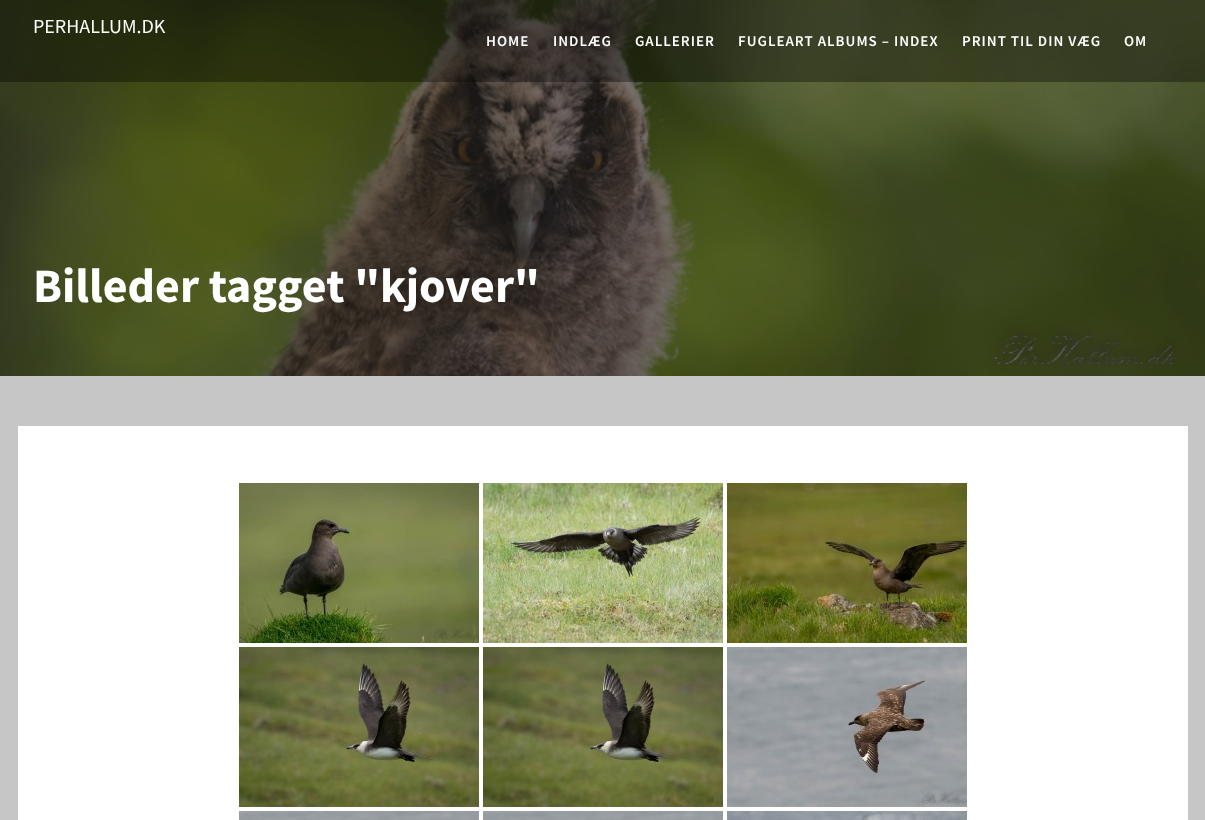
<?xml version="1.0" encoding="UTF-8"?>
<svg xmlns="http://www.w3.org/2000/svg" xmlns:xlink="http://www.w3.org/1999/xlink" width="1205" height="820">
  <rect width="100%" height="100%" fill="#c6c6c6" />
  <image x="0" y="0" width="1205" height="376" xlink:href="image1.png" />
  <rect width="1205" height="82" fill="#000000" fill-opacity="0.35" />
  <rect x="18" y="426" width="1170" height="394" fill="#ffffff" />
  <image x="239" y="483" width="240" height="160" xlink:href="image2.png" />
  <image x="483" y="483" width="240" height="160" xlink:href="image3.png" />
  <image x="727" y="483" width="240" height="160" xlink:href="image4.png" />
  <image x="239" y="647" width="240" height="160" xlink:href="image5.png" />
  <image x="483" y="647" width="240" height="160" xlink:href="image6.png" />
  <image x="727" y="647" width="240" height="160" xlink:href="image7.png" />
  <image x="239" y="811" width="240" height="9" xlink:href="image8.png" />
  <image x="483" y="811" width="240" height="9" xlink:href="image9.png" />
  <image x="727" y="811" width="240" height="9" xlink:href="image10.png" />
  <text x="33" y="33" style="font-family: Source Sans Pro; font-size: 20px; fill: #ffffff">PERHALLUM.DK</text>
  <text x="486" y="46" style="font-family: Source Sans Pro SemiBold; font-size: 15px; font-weight: 600; letter-spacing: 1px; fill: #ffffff">HOME</text>
  <text x="553" y="46" style="font-family: Source Sans Pro SemiBold; font-size: 15px; font-weight: 600; letter-spacing: 1px; fill: #ffffff">INDLÆG</text>
  <text x="635" y="46" style="font-family: Source Sans Pro SemiBold; font-size: 15px; font-weight: 600; letter-spacing: 1px; fill: #ffffff">GALLERIER</text>
  <text x="738" y="46" style="font-family: Source Sans Pro SemiBold; font-size: 15px; font-weight: 600; letter-spacing: 1px; fill: #ffffff">FUGLEART ALBUMS – INDEX</text>
  <text x="962" y="46" style="font-family: Source Sans Pro SemiBold; font-size: 15px; font-weight: 600; letter-spacing: 1px; fill: #ffffff">PRINT TIL DIN VÆG</text>
  <text x="1124" y="46" style="font-family: Source Sans Pro SemiBold; font-size: 15px; font-weight: 600; letter-spacing: 1px; fill: #ffffff">OM</text>
  <text x="33" y="302" style="font-family: Source Sans Pro; font-size: 48px; font-weight: bold; fill: #ffffff">Billeder tagget "kjover"</text>
</svg>
